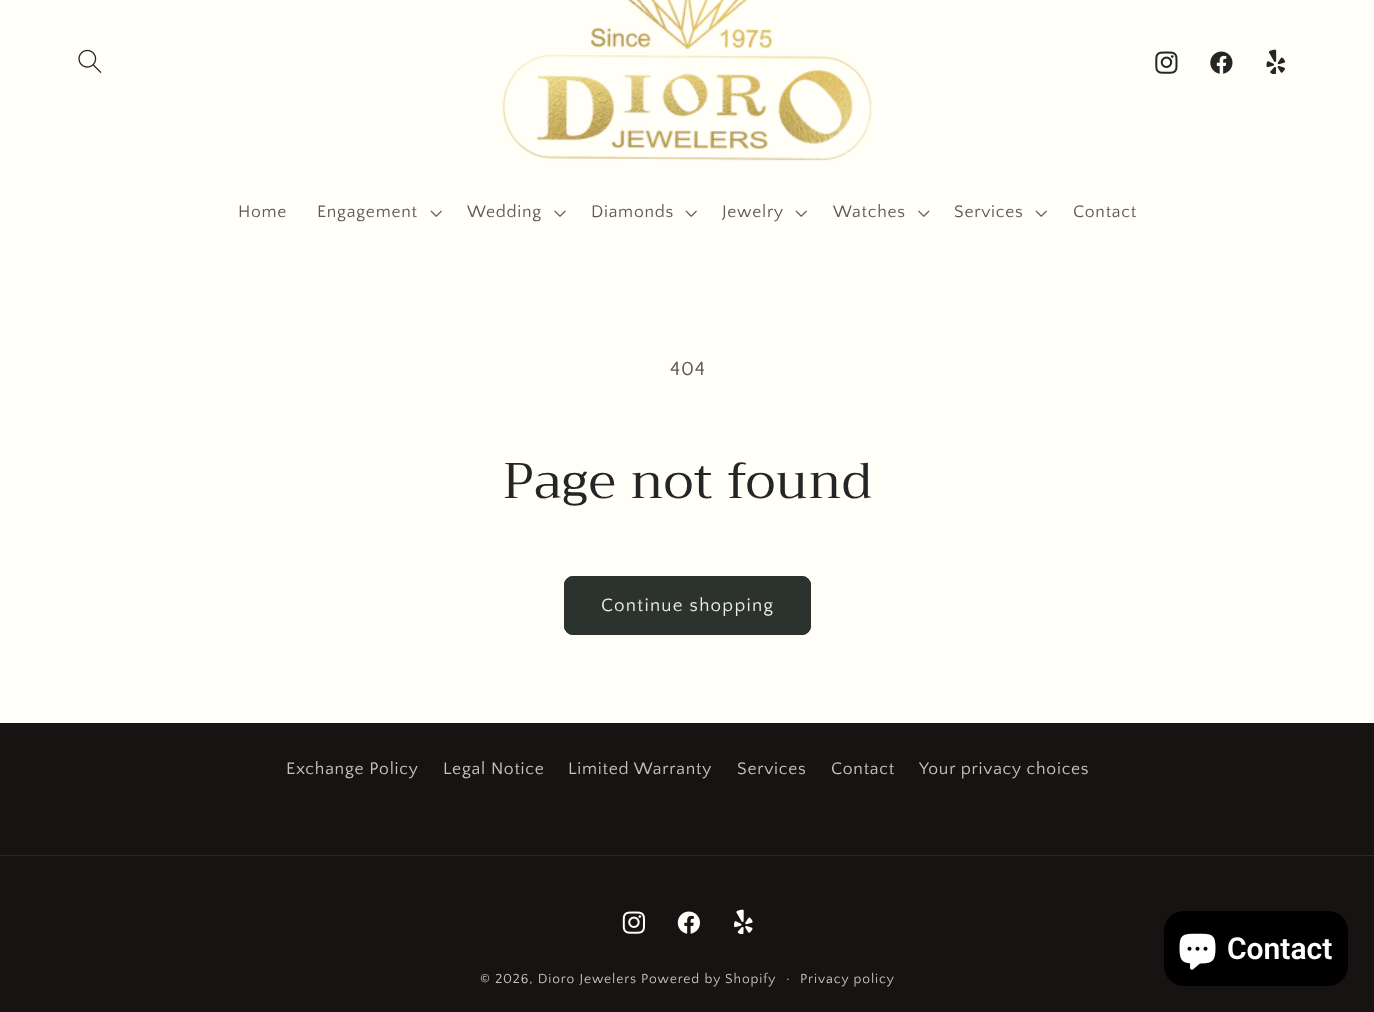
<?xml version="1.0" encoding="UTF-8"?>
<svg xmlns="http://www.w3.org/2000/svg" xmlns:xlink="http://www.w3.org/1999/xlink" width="1374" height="1012">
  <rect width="100%" height="100%" fill="#fffef7" />
  <image x="78" y="49" width="24" height="24" xlink:href="image1.png" />
  <image x="502" y="0" width="370" height="161" xlink:href="image2.png" />
  <image x="1155" y="51" width="23" height="23" xlink:href="image3.png" />
  <image x="1210" y="51" width="23" height="23" xlink:href="image4.png" />
  <image x="1266" y="49" width="20" height="25" xlink:href="image5.png" />
  <image x="430" y="210" width="12" height="7" xlink:href="image6.png" />
  <image x="554" y="210" width="12" height="7" xlink:href="image7.png" />
  <image x="685" y="210" width="12" height="7" xlink:href="image6.png" />
  <image x="795" y="210" width="12" height="7" xlink:href="image6.png" />
  <image x="918" y="210" width="12" height="7" xlink:href="image8.png" />
  <image x="1035" y="210" width="12" height="7" xlink:href="image6.png" />
  <rect x="564" y="576" width="247" height="59" rx="9" fill="#2c332f" />
  <rect x="564.5" y="576.5" width="246" height="58" rx="8.5" fill="none" stroke="#2c332f" />
  <rect y="723" width="1374" height="289" fill="#181313" />
  <rect y="855" width="1374" height="1" fill="#2a2625" />
  <image x="622" y="911" width="23" height="23" xlink:href="image9.png" />
  <image x="677" y="911" width="23" height="23" xlink:href="image10.png" />
  <image x="734" y="909" width="19" height="25" xlink:href="image11.png" />
  <rect x="1164" y="911" width="184" height="75" rx="20" fill="#000000" />
  <image x="1179" y="933" width="37" height="37" xlink:href="image12.png" />
  <text x="238" y="217" style="font-family: Quattrocento Sans; font-size: 17.5px; letter-spacing: 0.75px; fill: #5c5b5a">Home</text>
  <text x="317" y="217" style="font-family: Quattrocento Sans; font-size: 17.5px; letter-spacing: 0.75px; fill: #5c5b5a">Engagement</text>
  <text x="467" y="217" style="font-family: Quattrocento Sans; font-size: 17.5px; letter-spacing: 0.75px; fill: #5c5b5a">Wedding</text>
  <text x="591" y="217" style="font-family: Quattrocento Sans; font-size: 17.5px; letter-spacing: 0.75px; fill: #5c5b5a">Diamonds</text>
  <text x="722" y="217" style="font-family: Quattrocento Sans; font-size: 17.5px; letter-spacing: 0.75px; fill: #5c5b5a">Jewelry</text>
  <text x="833" y="217" style="font-family: Quattrocento Sans; font-size: 17.5px; letter-spacing: 0.75px; fill: #5c5b5a">Watches</text>
  <text x="954" y="217" style="font-family: Quattrocento Sans; font-size: 17.5px; letter-spacing: 0.75px; fill: #5c5b5a">Services</text>
  <text x="1073" y="217" style="font-family: Quattrocento Sans; font-size: 17.5px; letter-spacing: 0.75px; fill: #5c5b5a">Contact</text>
  <text x="670" y="375" style="font-family: Quattrocento Sans; font-size: 20px; letter-spacing: 0.75px; fill: #5c5b5a">404</text>
  <text x="503" y="498" style="font-family: Trirong; font-size: 50px; letter-spacing: 0.75px; fill: #252525">Page not found</text>
  <text x="601" y="611" style="font-family: Quattrocento Sans; font-size: 18.75px; letter-spacing: 1.25px; fill: #efecec">Continue shopping</text>
  <text x="286" y="774" style="font-family: Quattrocento Sans; font-size: 17.5px; letter-spacing: 0.75px; fill: #c5c3be">Exchange Policy</text>
  <text x="443" y="774" style="font-family: Quattrocento Sans; font-size: 17.5px; letter-spacing: 0.75px; fill: #c5c3be">Legal Notice</text>
  <text x="568" y="774" style="font-family: Quattrocento Sans; font-size: 17.5px; letter-spacing: 0.75px; fill: #c5c3be">Limited Warranty</text>
  <text x="737" y="774" style="font-family: Quattrocento Sans; font-size: 17.5px; letter-spacing: 0.75px; fill: #c5c3be">Services</text>
  <text x="831" y="774" style="font-family: Quattrocento Sans; font-size: 17.5px; letter-spacing: 0.75px; fill: #c5c3be">Contact</text>
  <text x="919" y="774" style="font-family: Quattrocento Sans; font-size: 17.5px; letter-spacing: 0.75px; fill: #c5c3be">Your privacy choices</text>
  <text x="480" y="983" style="font-family: Quattrocento Sans; font-size: 13.75px; letter-spacing: 0.9px; fill: #c5c3be">© 2026, Dioro Jewelers</text>
  <text x="641" y="983" style="font-family: Quattrocento Sans; font-size: 13.75px; letter-spacing: 0.9px; fill: #c5c3be">Powered by Shopify</text>
  <text x="786" y="983" style="font-family: Quattrocento Sans; font-size: 15px; letter-spacing: 0.9px; fill: #c5c3be">·</text>
  <text x="800" y="983" style="font-family: Quattrocento Sans; font-size: 13.75px; letter-spacing: 0.9px; fill: #c5c3be">Privacy policy</text>
  <text x="1227" y="959" style="font-family: Roboto; font-size: 30px; font-weight: 600; fill: #ffffff">Contact</text>
</svg>
